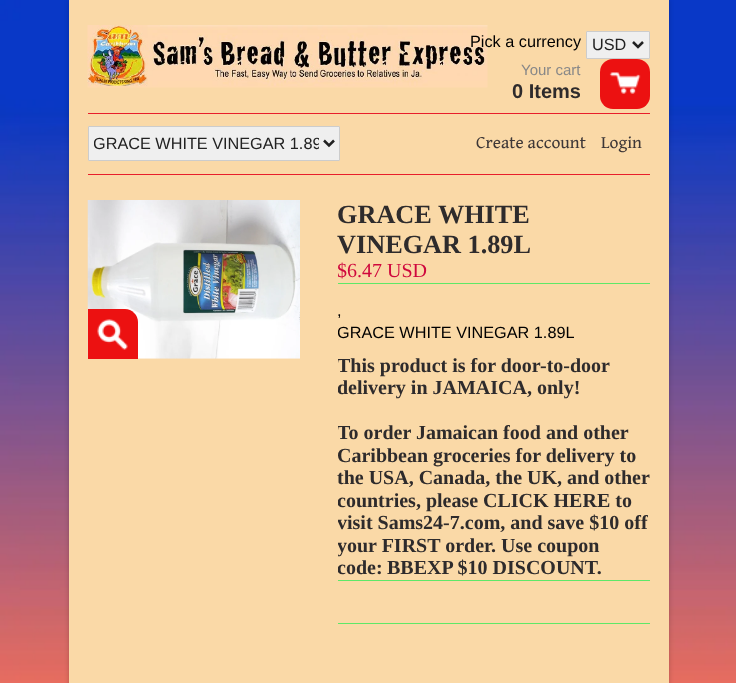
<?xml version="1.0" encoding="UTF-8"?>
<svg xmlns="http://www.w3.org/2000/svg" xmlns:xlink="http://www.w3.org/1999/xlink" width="736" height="683">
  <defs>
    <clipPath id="clip1"><rect x="94" y="133" width="225" height="21" /></clipPath>
    <clipPath id="clip2"><rect x="338" y="200" width="312" height="424" /></clipPath>
  </defs>
  <rect width="100%" height="100%" fill="#ffffff" />
  <image x="0" y="0" width="736" height="683" xlink:href="image1.png" />
  <rect x="69" width="600" height="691" fill="#000000" fill-opacity="0.2" filter="blur(2.5px)" />
  <rect x="69" width="600" height="683" fill="#fad9a7" />
  <image x="87" y="25" width="401" height="63" xlink:href="image2.png" />
  <rect x="586.5" y="31.5" width="63" height="27" rx="0.5" fill="#efefef" stroke="#cccccc" />
  <path d="M 633 42 l 5 5 l 5 -5" fill="none" stroke="#222222" stroke-width="2.5" />
  <rect x="600" y="59" width="50" height="50" rx="13" fill="#ec1111" />
  <image x="609" y="72" width="32" height="22" xlink:href="image3.png" />
  <rect x="88" y="113" width="562" height="1" fill="#e81e2b" />
  <rect x="88" y="174" width="562" height="1" fill="#e81e2b" />
  <rect x="88.5" y="126.5" width="251" height="34" rx="0.5" fill="#efefef" stroke="#cccccc" />
  <path d="M 324 140.5 l 5 5 l 5 -5" fill="none" stroke="#222222" stroke-width="2.5" />
  <image x="87" y="200" width="213" height="159" xlink:href="image4.png" />
  <path d="M 88 309 h 37 c 7 0 13 6 13 13 v 37 h -50 z" fill="#ec1111" />
  <image x="97" y="319" width="31" height="31" xlink:href="image5.png" />
  <rect x="338" y="283" width="312" height="1" fill="#5de868" />
  <rect x="338" y="623" width="312" height="1" fill="#5de868" />
  <rect x="338" y="580" width="312" height="1" fill="#5de868" />
  <text x="470" y="47" style="font-family: Liberation Sans; font-size: 16.25px; fill: #000000">Pick a currency</text>
  <text x="592" y="50" style="font-family: Liberation Sans; font-size: 16.25px; fill: #222222">USD</text>
  <text x="521" y="75" style="font-family: Liberation Sans; font-size: 15px; fill: #888888">Your cart</text>
  <text x="512" y="98" style="font-family: Liberation Sans; font-size: 20px; font-weight: bold; fill: #2e2b2c">0 Items</text>
  <g clip-path="url(#clip1)">
    <text x="93" y="149" style="font-family: Liberation Sans; font-size: 16.25px; fill: #222222">GRACE WHITE VINEGAR 1.89</text>
  </g>
  <text x="476" y="148" style="font-family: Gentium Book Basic; font-size: 17.5px; fill: #3d3737">Create account</text>
  <text x="601" y="148" style="font-family: Gentium Book Basic; font-size: 17.5px; fill: #3d3737">Login</text>
  <text x="337" y="223" style="font-family: Liberation Serif; font-size: 26.25px; font-weight: bold; fill: #2e2b2c">GRACE WHITE</text>
  <text x="337" y="253" style="font-family: Liberation Serif; font-size: 26.25px; font-weight: bold; fill: #2e2b2c">VINEGAR 1.89L</text>
  <g clip-path="url(#clip2)">
    <text x="337" y="277" style="font-family: Liberation Serif; font-size: 20px; fill: #cf083d">$6.47 USD</text>
  </g>
  <text x="337" y="316" style="font-family: Liberation Sans; font-size: 16.25px; fill: #000000">,</text>
  <g clip-path="url(#clip2)">
    <text x="337" y="338" style="font-family: Liberation Sans; font-size: 16.25px; fill: #000000">GRACE WHITE VINEGAR 1.89L</text>
    <text x="337" y="372" style="font-family: Liberation Serif; font-size: 20px; font-weight: bold; fill: #2e2b2c">This product is for door-to-door</text>
    <text x="337" y="394" style="font-family: Liberation Serif; font-size: 20px; font-weight: bold; fill: #2e2b2c">delivery in JAMAICA, only!</text>
    <text x="337" y="439" style="font-family: Liberation Serif; font-size: 20px; font-weight: bold; fill: #2e2b2c">To order Jamaican food and other</text>
    <text x="337" y="462" style="font-family: Liberation Serif; font-size: 20px; font-weight: bold; fill: #2e2b2c">Caribbean groceries for delivery to</text>
  </g>
  <text x="337" y="484" style="font-family: Liberation Serif; font-size: 20px; font-weight: bold; fill: #2e2b2c">the USA, Canada, the UK, and other</text>
  <g clip-path="url(#clip2)">
    <text x="337" y="507" style="font-family: Liberation Serif; font-size: 20px; font-weight: bold; fill: #2e2b2c">countries, please</text>
  </g>
  <text x="483" y="507" style="font-family: Liberation Serif; font-size: 20px; font-weight: bold; fill: #2e2b2c">CLICK HERE to</text>
  <g clip-path="url(#clip2)">
    <text x="337" y="529" style="font-family: Liberation Serif; font-size: 20px; font-weight: bold; fill: #2e2b2c">visit Sams24-7.com, and save $10 off</text>
    <text x="337" y="552" style="font-family: Liberation Serif; font-size: 20px; font-weight: bold; fill: #2e2b2c">your FIRST order. Use coupon</text>
    <text x="337" y="574" style="font-family: Liberation Serif; font-size: 20px; font-weight: bold; fill: #2e2b2c">code:</text>
  </g>
  <text x="387" y="574" style="font-family: Liberation Serif; font-size: 20px; font-weight: bold; fill: #2e2b2c">BBEXP $10 DISCOUNT.</text>
</svg>
